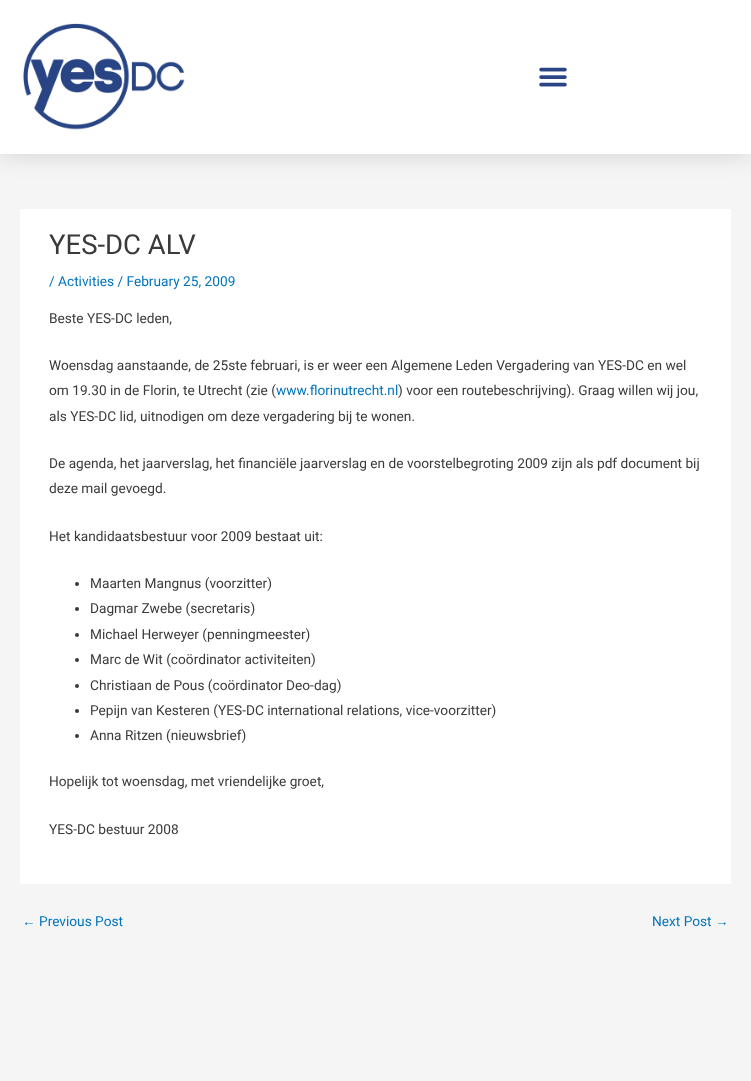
<?xml version="1.0" encoding="UTF-8"?>
<svg xmlns="http://www.w3.org/2000/svg" xmlns:xlink="http://www.w3.org/1999/xlink" width="751" height="1081">
  <rect width="100%" height="100%" fill="#f5f5f5" />
  <rect width="751" height="154" fill="#000000" fill-opacity="0.15" filter="blur(12px)" />
  <rect width="751" height="154" fill="#ffffff" />
  <image x="23" y="23" width="162" height="107" xlink:href="image1.png" />
  <image x="539" y="67" width="28" height="20" xlink:href="image2.png" />
  <rect x="20" y="209" width="711" height="675" fill="#ffffff" />
  <circle cx="77" cy="584" r="2" fill="#3a3a3a" />
  <circle cx="77" cy="609" r="2" fill="#3a3a3a" />
  <circle cx="77" cy="635" r="2" fill="#3a3a3a" />
  <circle cx="77" cy="660" r="2" fill="#3a3a3a" />
  <circle cx="77" cy="686" r="2" fill="#3a3a3a" />
  <circle cx="77" cy="711" r="2" fill="#3a3a3a" />
  <circle cx="77" cy="736" r="2" fill="#3a3a3a" />
  <text x="49" y="254" style="font-family: Roboto; font-size: 27.5px; fill: #3a3a3a">YES-DC ALV</text>
  <text x="49" y="286" style="font-family: Roboto; font-size: 13.7px; fill: #0274be">/ Activities / February 25, 2009</text>
  <text x="49" y="323" style="font-family: Roboto; font-size: 13.7px; fill: #3a3a3a">Beste YES-DC leden,</text>
  <text x="49" y="370" style="font-family: Roboto; font-size: 13.7px; fill: #3a3a3a">Woensdag aanstaande, de 25ste februari, is er weer een Algemene Leden Vergadering van YES-DC en wel</text>
  <text x="49" y="395" style="font-family: Roboto; font-size: 13.7px; fill: #3a3a3a">om 19.30 in de Florin, te Utrecht (zie (</text>
  <text x="276" y="395" style="font-family: Roboto; font-size: 13.7px; fill: #0274be">www.florinutrecht.nl</text>
  <text x="398" y="395" style="font-family: Roboto; font-size: 13.7px; fill: #3a3a3a">) voor een routebeschrijving). Graag willen wij jou,</text>
  <text x="49" y="421" style="font-family: Roboto; font-size: 13.7px; fill: #3a3a3a">als YES-DC lid, uitnodigen om deze vergadering bij te wonen.</text>
  <text x="49" y="468" style="font-family: Roboto; font-size: 13.7px; fill: #3a3a3a">De agenda, het jaarverslag, het financiële jaarverslag en de voorstelbegroting 2009 zijn als pdf document bij</text>
  <text x="49" y="493" style="font-family: Roboto; font-size: 13.7px; fill: #3a3a3a">deze mail gevoegd.</text>
  <text x="49" y="541" style="font-family: Roboto; font-size: 13.7px; fill: #3a3a3a">Het kandidaatsbestuur voor 2009 bestaat uit:</text>
  <text x="90" y="588" style="font-family: Roboto; font-size: 13.7px; fill: #3a3a3a">Maarten Mangnus (voorzitter)</text>
  <text x="90" y="613" style="font-family: Roboto; font-size: 13.7px; fill: #3a3a3a">Dagmar Zwebe (secretaris)</text>
  <text x="90" y="639" style="font-family: Roboto; font-size: 13.7px; fill: #3a3a3a">Michael Herweyer (penningmeester)</text>
  <text x="90" y="664" style="font-family: Roboto; font-size: 13.7px; fill: #3a3a3a">Marc de Wit (coördinator activiteiten)</text>
  <text x="90" y="690" style="font-family: Roboto; font-size: 13.7px; fill: #3a3a3a">Christiaan de Pous (coördinator Deo-dag)</text>
  <text x="90" y="715" style="font-family: Roboto; font-size: 13.7px; fill: #3a3a3a">Pepijn van Kesteren (YES-DC international relations, vice-voorzitter)</text>
  <text x="90" y="740" style="font-family: Roboto; font-size: 13.7px; fill: #3a3a3a">Anna Ritzen (nieuwsbrief)</text>
  <text x="49" y="786" style="font-family: Roboto; font-size: 13.7px; fill: #3a3a3a">Hopelijk tot woensdag, met vriendelijke groet,</text>
  <text x="49" y="834" style="font-family: Roboto; font-size: 13.7px; fill: #3a3a3a">YES-DC bestuur 2008</text>
  <text x="22" y="926" style="font-family: Liberation Sans; font-size: 13.7px; fill: #0274be">←</text>
  <text x="39" y="926" style="font-family: Roboto; font-size: 13.7px; fill: #0274be">Previous Post</text>
  <text x="652" y="926" style="font-family: Roboto; font-size: 13.7px; fill: #0274be">Next Post</text>
  <text x="715" y="926" style="font-family: Liberation Sans; font-size: 13.7px; fill: #0274be">→</text>
</svg>
